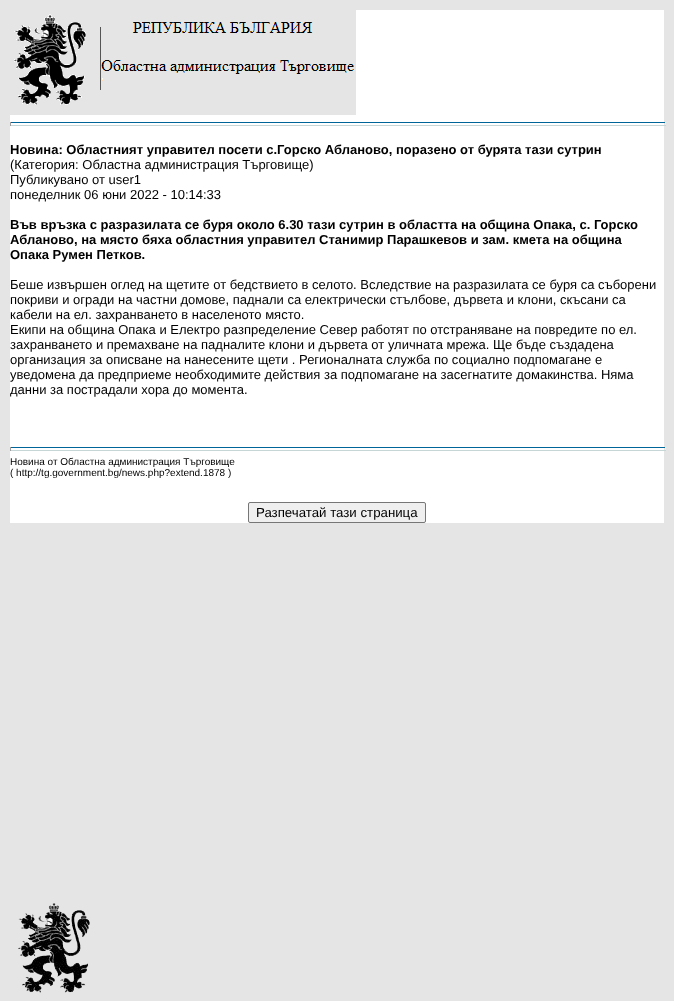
<?xml version="1.0" encoding="UTF-8"?>
<svg xmlns="http://www.w3.org/2000/svg" xmlns:xlink="http://www.w3.org/1999/xlink" width="674" height="1001">
  <rect width="100%" height="100%" fill="#e5e5e5" />
  <image x="18" y="903" width="72" height="90" xlink:href="image1.png" />
  <rect x="10" y="10" width="654" height="513" fill="#ffffff" />
  <image x="10" y="10" width="346" height="105" xlink:href="image2.png" />
  <rect x="10" y="122" width="656" height="1" fill="#006699" />
  <rect x="665" y="122" width="1" height="4" fill="#eeeeee" />
  <rect x="10" y="125" width="656" height="1" fill="#c6d6d6" />
  <rect x="10" y="122" width="1" height="4" fill="#9f9f9f" />
  <rect x="10" y="447" width="656" height="1" fill="#006699" />
  <rect x="665" y="447" width="1" height="4" fill="#eeeeee" />
  <rect x="10" y="450" width="656" height="1" fill="#c6d6d6" />
  <rect x="10" y="447" width="1" height="4" fill="#9f9f9f" />
  <rect x="248.5" y="502.5" width="177" height="20" rx="1.5" fill="#efefef" stroke="#767676" />
  <text x="10" y="154" style="font-family: Liberation Sans; font-size: 13px; font-weight: bold; fill: #000000">Новина: Областният управител посети с.Горско Абланово, поразено от бурята тази сутрин</text>
  <text x="10" y="169" style="font-family: Liberation Sans; font-size: 13px; fill: #000000">(Категория: Областна администрация Търговище)</text>
  <text x="10" y="184" style="font-family: Liberation Sans; font-size: 13px; fill: #000000">Публикувано от user1</text>
  <text x="10" y="199" style="font-family: Liberation Sans; font-size: 13px; fill: #000000">понеделник 06 юни 2022 - 10:14:33</text>
  <text x="10" y="229" style="font-family: Liberation Sans; font-size: 13px; font-weight: bold; fill: #000000">Във връзка с разразилата се буря около 6.30 тази сутрин в областта на община Опака, с. Горско</text>
  <text x="10" y="244" style="font-family: Liberation Sans; font-size: 13px; font-weight: bold; fill: #000000">Абланово, на място бяха областния управител Станимир Парашкевов и зам. кмета на община</text>
  <text x="10" y="259" style="font-family: Liberation Sans; font-size: 13px; font-weight: bold; fill: #000000">Опака Румен Петков.</text>
  <text x="10" y="289" style="font-family: Liberation Sans; font-size: 13px; fill: #000000">Беше извършен оглед на щетите от бедствието в селото. Вследствие на разразилата се буря са съборени</text>
  <text x="10" y="304" style="font-family: Liberation Sans; font-size: 13px; fill: #000000">покриви и огради на частни домове, паднали са електрически стълбове, дървета и клони, скъсани са</text>
  <text x="10" y="319" style="font-family: Liberation Sans; font-size: 13px; fill: #000000">кабели на ел. захранването в населеното място.</text>
  <text x="10" y="334" style="font-family: Liberation Sans; font-size: 13px; fill: #000000">Екипи на община Опака и Електро разпределение Север работят по отстраняване на повредите по ел.</text>
  <text x="10" y="349" style="font-family: Liberation Sans; font-size: 13px; fill: #000000">захранването и премахване на падналите клони и дървета от уличната мрежа. Ще бъде създадена</text>
  <text x="10" y="364" style="font-family: Liberation Sans; font-size: 13px; fill: #000000">организация за описване на нанесените щети . Регионалната служба по социално подпомагане е</text>
  <text x="10" y="379" style="font-family: Liberation Sans; font-size: 13px; fill: #000000">уведомена да предприеме необходимите действия за подпомагане на засегнатите домакинства. Няма</text>
  <text x="10" y="394" style="font-family: Liberation Sans; font-size: 13px; fill: #000000">данни за пострадали хора до момента.</text>
  <text x="10" y="465" style="font-family: Liberation Sans; font-size: 10px; fill: #000000">Новина от Областна администрация Търговище</text>
  <text x="10" y="476" style="font-family: Liberation Sans; font-size: 10px; fill: #000000">( http://tg.government.bg/news.php?extend.1878 )</text>
  <text x="256" y="517" style="font-family: Liberation Sans; font-size: 13.25px; fill: #000000">Разпечатай тази страница</text>
</svg>
